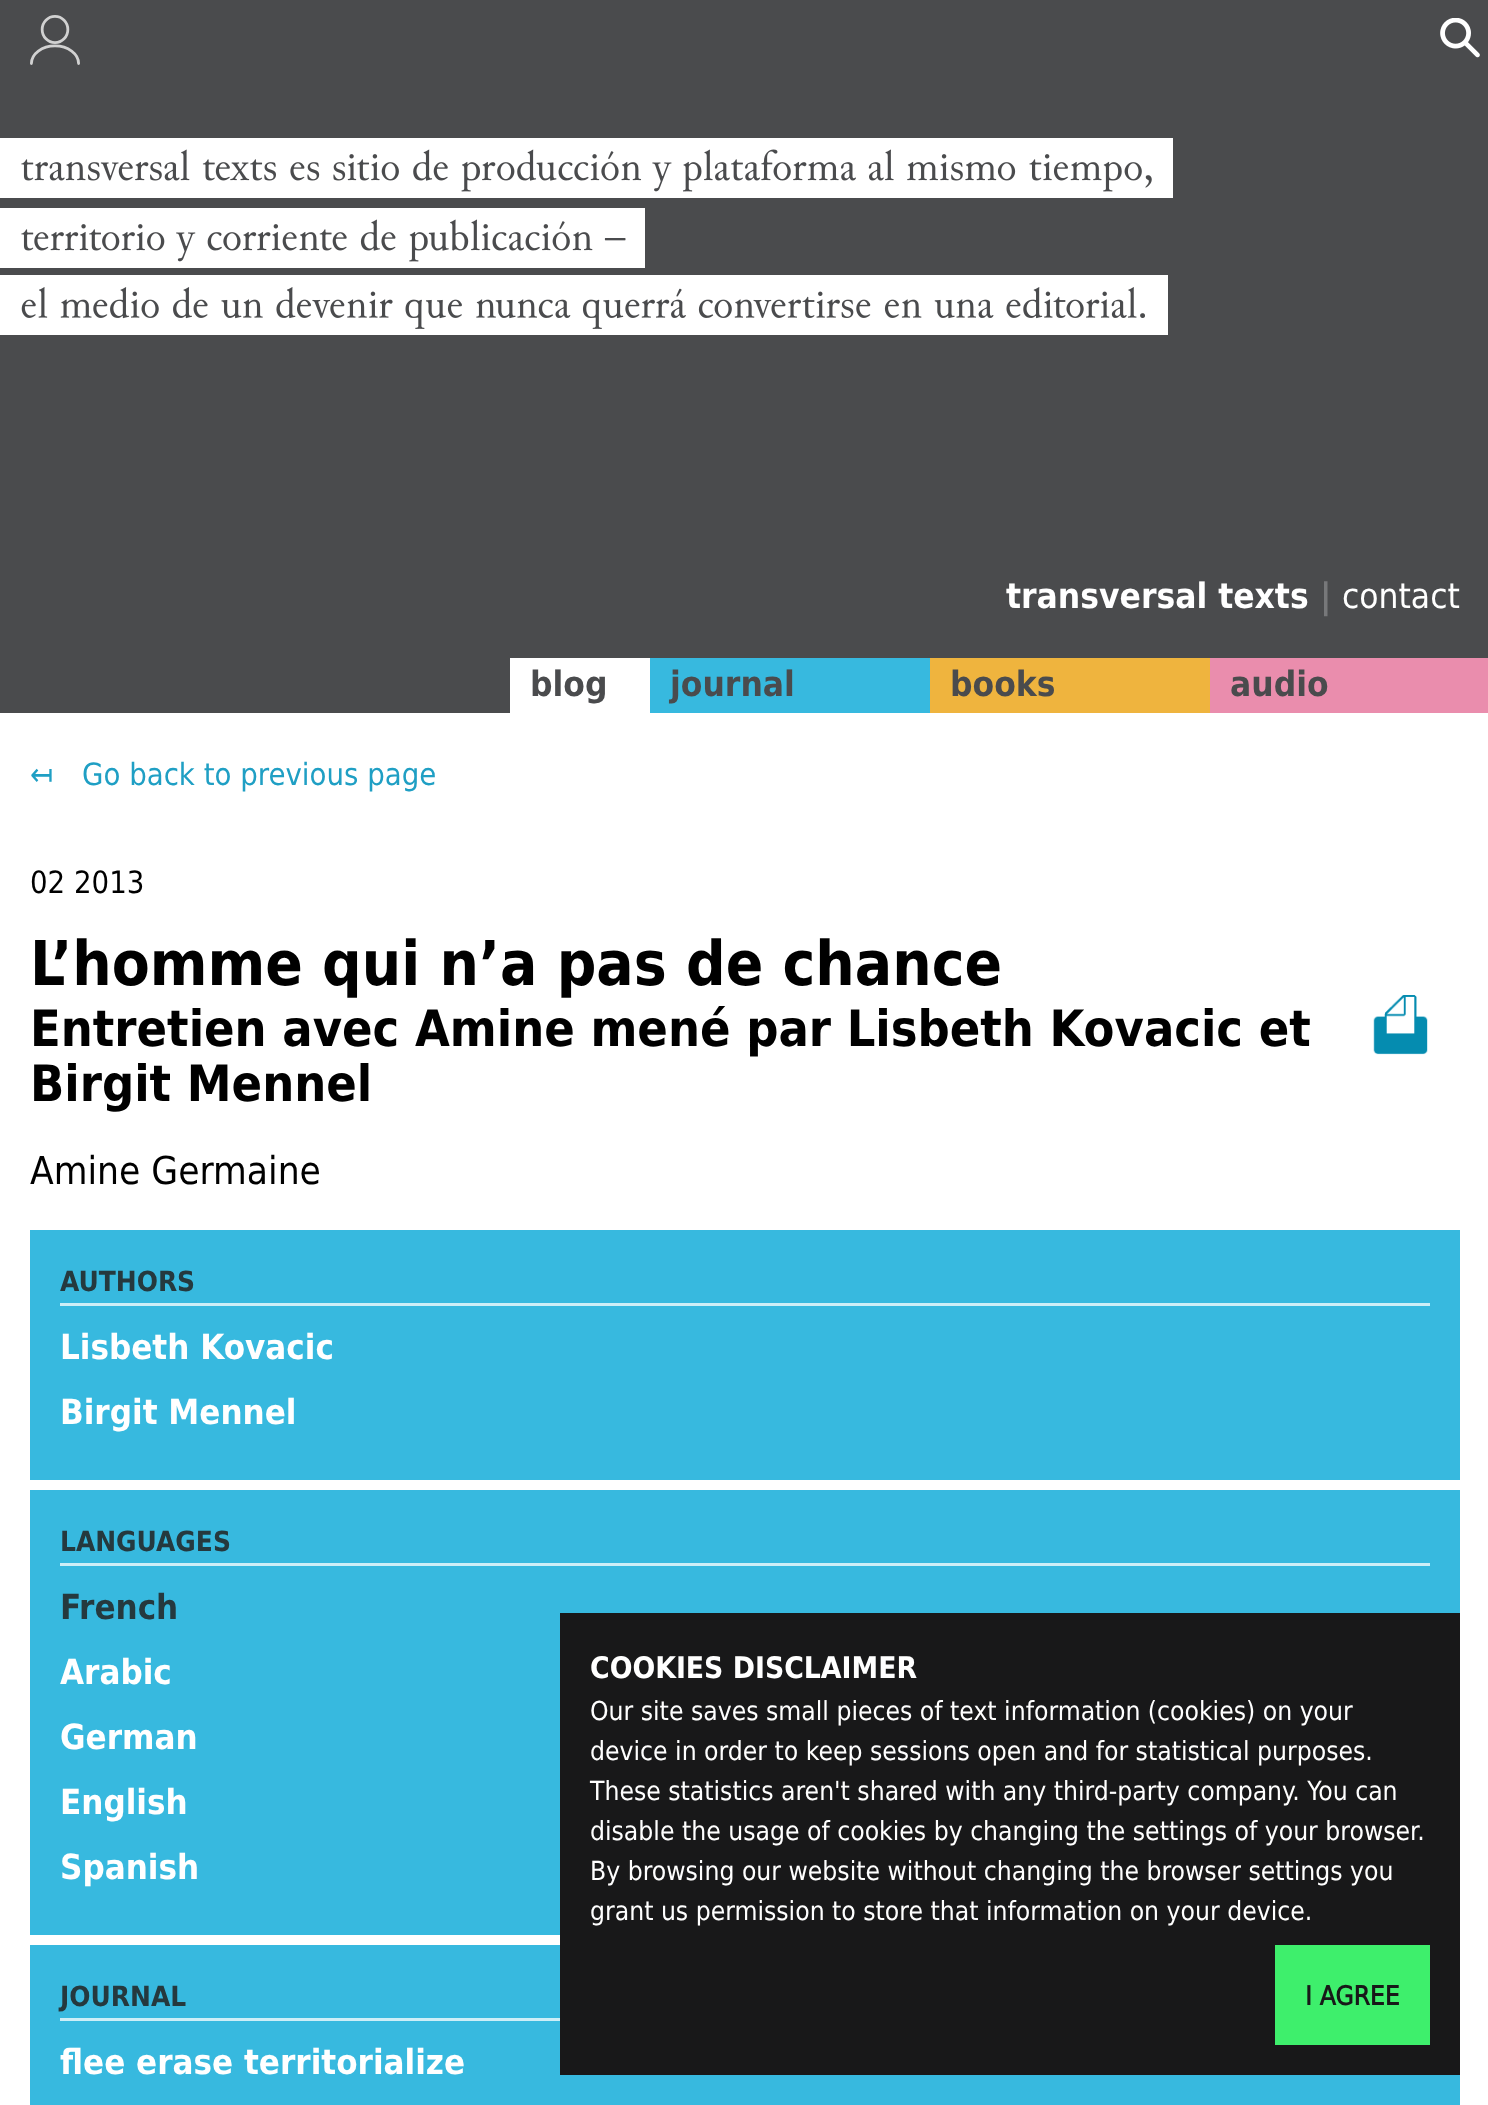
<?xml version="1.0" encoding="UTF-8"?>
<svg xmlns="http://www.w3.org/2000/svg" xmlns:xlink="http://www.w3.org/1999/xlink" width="1488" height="2105">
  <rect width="100%" height="100%" fill="#4a4b4d" />
  <rect y="713" width="1488" height="1392" fill="#ffffff" />
  <image x="30" y="15" width="50" height="50" xlink:href="image1.png" />
  <image x="1440" y="18" width="40" height="40" xlink:href="image2.png" />
  <rect y="138" width="1173" height="60" fill="#ffffff" />
  <image x="21" y="149" width="1131" height="43" xlink:href="image3.png" />
  <rect y="208" width="645" height="60" fill="#ffffff" />
  <image x="21" y="219" width="605" height="43" xlink:href="image4.png" />
  <rect y="275" width="1168" height="60" fill="#ffffff" />
  <image x="21" y="287" width="1124" height="42" xlink:href="image5.png" />
  <rect x="510" y="658" width="140" height="55" fill="#ffffff" />
  <rect x="650" y="658" width="280" height="55" fill="#37b9df" />
  <rect x="930" y="658" width="280" height="55" fill="#efb43e" />
  <rect x="1210" y="658" width="278" height="55" fill="#ea8dad" />
  <image x="1373" y="995" width="55" height="60" xlink:href="image6.png" />
  <rect x="30" y="1230" width="1430" height="875" fill="#37b9df" />
  <rect x="30" y="1480" width="1430" height="10" fill="#ffffff" />
  <rect x="60" y="1303" width="1370" height="3" fill="#cdeef7" />
  <rect x="30" y="1935" width="530" height="10" fill="#ffffff" />
  <rect x="60" y="1563" width="1370" height="3" fill="#cdeef7" />
  <rect x="60" y="2018" width="500" height="3" fill="#cdeef7" />
  <rect x="560" y="1613" width="900" height="462" fill="#181819" />
  <rect x="1275" y="1945" width="155" height="100" fill="#3eef6c" />
  <text x="1006" y="608" style="font-family: DejaVu Sans; font-size: 35px; font-weight: bold; fill: #ffffff">transversal texts</text>
  <text x="1320" y="608" style="font-family: DejaVu Sans; font-size: 35px; font-weight: bold; fill: #77787a">|</text>
  <text x="1342" y="608" style="font-family: DejaVu Sans; font-size: 35px; fill: #ffffff">contact</text>
  <text x="530" y="696" style="font-family: DejaVu Sans; font-size: 35px; font-weight: bold; fill: #4a4b4d">blog</text>
  <text x="670" y="696" style="font-family: DejaVu Sans; font-size: 35px; font-weight: bold; fill: #4a4b4d">journal</text>
  <text x="950" y="696" style="font-family: DejaVu Sans; font-size: 35px; font-weight: bold; fill: #4a4b4d">books</text>
  <text x="1230" y="696" style="font-family: DejaVu Sans; font-size: 35px; font-weight: bold; fill: #4a4b4d">audio</text>
  <text x="30" y="785" style="font-family: DejaVu Sans; font-size: 30.75px; fill: #1f9fc4">↤</text>
  <text x="82" y="785" style="font-family: DejaVu Sans; font-size: 30.75px; fill: #1f9fc4">Go back to previous page</text>
  <text x="30" y="893" style="font-family: DejaVu Sans; font-size: 30.75px; fill: #000000">02 2013</text>
  <text x="30" y="985" style="font-family: DejaVu Sans; font-size: 61.6px; font-weight: bold; fill: #000000">L’homme qui n’a pas de chance</text>
  <text x="30" y="1046" style="font-family: DejaVu Sans; font-size: 50.05px; font-weight: bold; fill: #000000">Entretien avec Amine mené par Lisbeth Kovacic et</text>
  <text x="30" y="1101" style="font-family: DejaVu Sans; font-size: 50.05px; font-weight: bold; fill: #000000">Birgit Mennel</text>
  <text x="30" y="1184" style="font-family: DejaVu Sans; font-size: 38.5px; fill: #000000">Amine Germaine</text>
  <text x="60" y="1291" style="font-family: DejaVu Sans; font-size: 27.75px; font-weight: bold; fill: #25393e">AUTHORS</text>
  <text x="60" y="1359" style="font-family: DejaVu Sans; font-size: 34.6px; font-weight: bold; fill: #ffffff">Lisbeth Kovacic</text>
  <text x="60" y="1424" style="font-family: DejaVu Sans; font-size: 34.6px; font-weight: bold; fill: #ffffff">Birgit Mennel</text>
  <text x="60" y="1551" style="font-family: DejaVu Sans; font-size: 27.75px; font-weight: bold; fill: #25393e">LANGUAGES</text>
  <text x="60" y="1619" style="font-family: DejaVu Sans; font-size: 34.6px; font-weight: bold; fill: #25393e">French</text>
  <text x="60" y="1684" style="font-family: DejaVu Sans; font-size: 34.6px; font-weight: bold; fill: #ffffff">Arabic</text>
  <text x="60" y="1749" style="font-family: DejaVu Sans; font-size: 34.6px; font-weight: bold; fill: #ffffff">German</text>
  <text x="60" y="1814" style="font-family: DejaVu Sans; font-size: 34.6px; font-weight: bold; fill: #ffffff">English</text>
  <text x="60" y="1879" style="font-family: DejaVu Sans; font-size: 34.6px; font-weight: bold; fill: #ffffff">Spanish</text>
  <text x="60" y="2006" style="font-family: DejaVu Sans; font-size: 27.75px; font-weight: bold; fill: #25393e">JOURNAL</text>
  <text x="60" y="2074" style="font-family: DejaVu Sans; font-size: 34.6px; font-weight: bold; fill: #ffffff">flee erase territorialize</text>
  <text x="590" y="1678" style="font-family: DejaVu Sans; font-size: 29.75px; font-weight: bold; fill: #ffffff">COOKIES DISCLAIMER</text>
  <text x="590" y="1720" style="font-family: DejaVu Sans; font-size: 26.25px; fill: #ffffff">Our site saves small pieces of text information (cookies) on your</text>
  <text x="590" y="1760" style="font-family: DejaVu Sans; font-size: 26.25px; fill: #ffffff">device in order to keep sessions open and for statistical purposes.</text>
  <text x="590" y="1800" style="font-family: DejaVu Sans; font-size: 26.25px; fill: #ffffff">These statistics aren't shared with any third-party company. You can</text>
  <text x="590" y="1840" style="font-family: DejaVu Sans; font-size: 26.25px; fill: #ffffff">disable the usage of cookies by changing the settings of your browser.</text>
  <text x="590" y="1880" style="font-family: DejaVu Sans; font-size: 26.25px; fill: #ffffff">By browsing our website without changing the browser settings you</text>
  <text x="590" y="1920" style="font-family: DejaVu Sans; font-size: 26.25px; fill: #ffffff">grant us permission to store that information on your device.</text>
  <text x="1305" y="2005" style="font-family: 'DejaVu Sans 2'; font-size: 26.25px; font-weight: bold; fill: #181819">I AGREE</text>
</svg>
